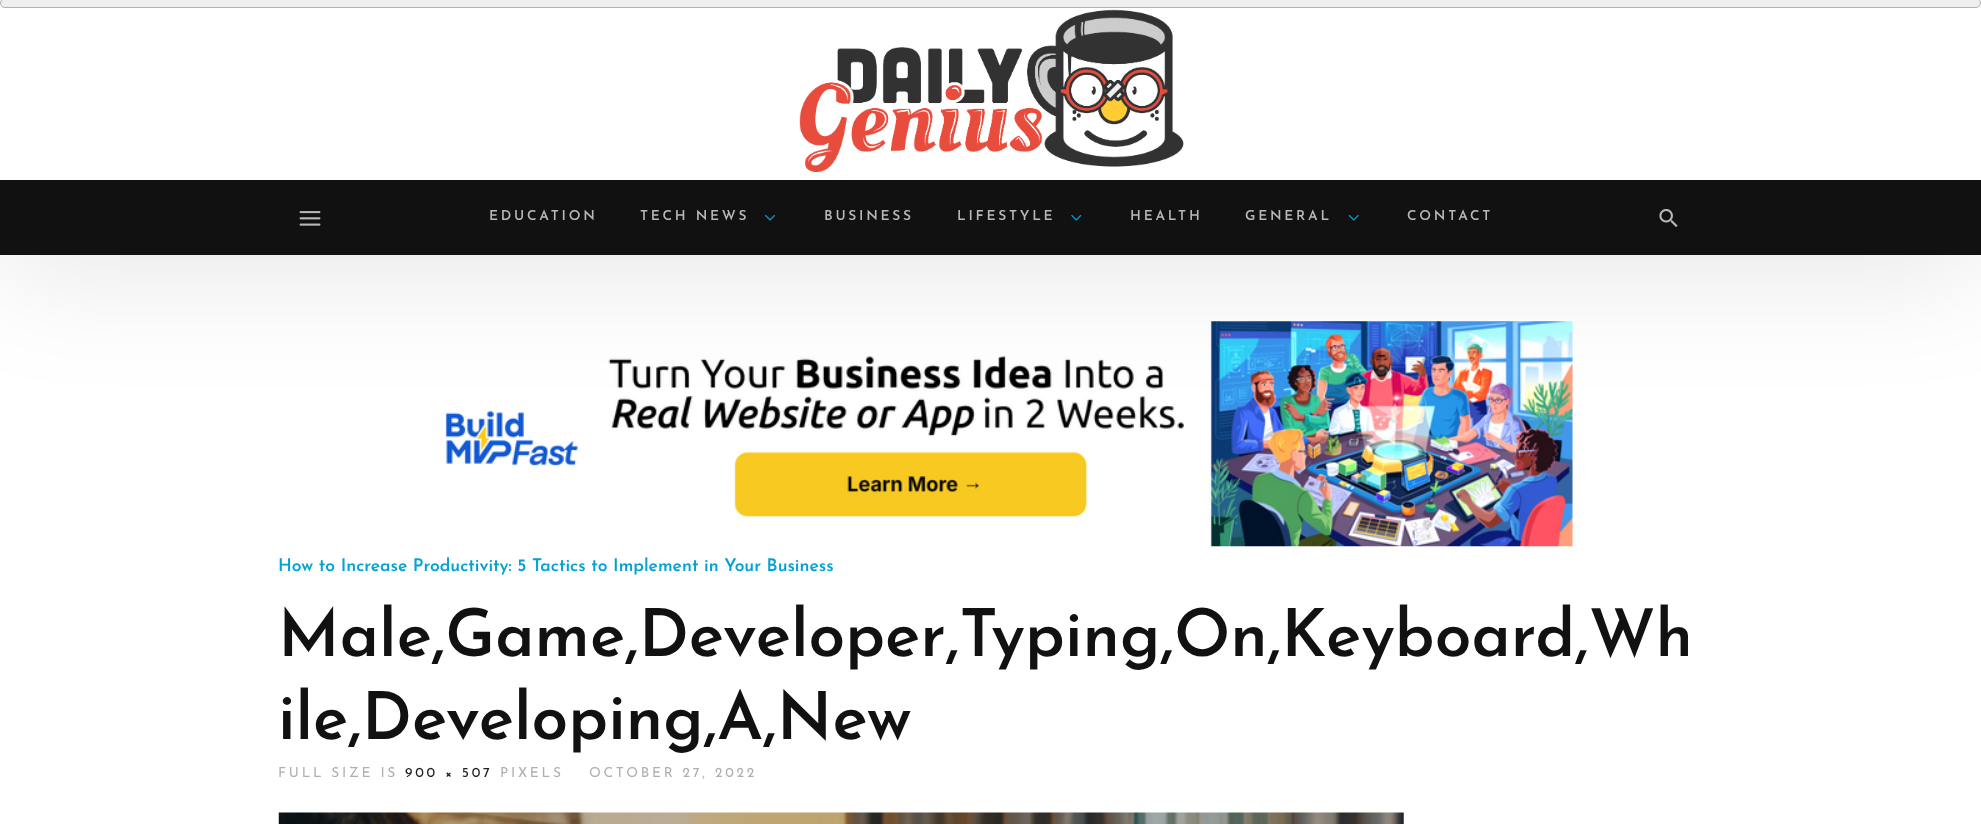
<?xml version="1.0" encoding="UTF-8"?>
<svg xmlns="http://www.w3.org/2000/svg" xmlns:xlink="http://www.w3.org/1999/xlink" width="1981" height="824">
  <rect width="100%" height="100%" fill="#ffffff" />
  <image x="445" y="321" width="1128" height="226" xlink:href="image7.png" />
  <rect y="13" width="1981" height="255" fill="#000000" fill-opacity="0.1" filter="blur(62.5px)" />
  <rect width="1981" height="180" fill="#ffffff" />
  <rect x="0.5" y="-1.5" width="1980" height="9" rx="4.5" fill="#efefef" stroke="#b2b2b2" />
  <image x="799" y="9" width="385" height="163" xlink:href="image1.png" />
  <rect y="180" width="1981" height="75" fill="#111111" />
  <image x="299" y="211" width="22" height="15" xlink:href="image2.png" />
  <image x="765" y="215" width="10" height="6" xlink:href="image3.png" />
  <image x="1071" y="215" width="11" height="6" xlink:href="image4.png" />
  <image x="1348" y="215" width="11" height="6" xlink:href="image5.png" />
  <image x="1659" y="209" width="19" height="18" xlink:href="image6.png" />
  <image x="278" y="812" width="1126" height="12" xlink:href="image8.png" />
  <text x="489" y="220" style="font-family: Josefin Sans; font-size: 13.75px; font-weight: 600; letter-spacing: 2.75px; fill: #b8b8b8">EDUCATION</text>
  <text x="640" y="220" style="font-family: Josefin Sans; font-size: 13.75px; font-weight: 600; letter-spacing: 2.75px; fill: #b8b8b8">TECH NEWS</text>
  <text x="824" y="220" style="font-family: Josefin Sans; font-size: 13.75px; font-weight: 600; letter-spacing: 2.75px; fill: #b8b8b8">BUSINESS</text>
  <text x="957" y="220" style="font-family: Josefin Sans; font-size: 13.75px; font-weight: 600; letter-spacing: 2.75px; fill: #b8b8b8">LIFESTYLE</text>
  <text x="1130" y="220" style="font-family: Josefin Sans; font-size: 13.75px; font-weight: 600; letter-spacing: 2.75px; fill: #b8b8b8">HEALTH</text>
  <text x="1245" y="220" style="font-family: Josefin Sans; font-size: 13.75px; font-weight: 600; letter-spacing: 2.75px; fill: #b8b8b8">GENERAL</text>
  <text x="1407" y="220" style="font-family: Josefin Sans; font-size: 13.75px; font-weight: 600; letter-spacing: 2.75px; fill: #b8b8b8">CONTACT</text>
  <text x="278" y="571" style="font-family: Josefin Sans; font-size: 17.5px; font-weight: 600; fill: #00a3d3">How to Increase Productivity: 5 Tactics to Implement in Your Business</text>
  <text x="278" y="656" style="font-family: Josefin Sans; font-size: 66px; font-weight: 600; fill: #111111">Male,Game,Developer,Typing,On,Keyboard,Wh</text>
  <text x="278" y="739" style="font-family: Josefin Sans; font-size: 66px; font-weight: 600; fill: #111111">ile,Developing,A,New</text>
  <text x="278" y="777" style="font-family: Josefin Sans; font-size: 13.75px; letter-spacing: 2.75px; fill: #afafaf">FULL SIZE IS</text>
  <text x="405" y="777" style="font-family: Josefin Sans; font-size: 13.75px; letter-spacing: 2.75px; fill: #212121">900 × 507</text>
  <text x="500" y="777" style="font-family: Josefin Sans; font-size: 13.75px; letter-spacing: 2.75px; fill: #afafaf">PIXELS</text>
  <text x="589" y="777" style="font-family: Josefin Sans; font-size: 13.75px; letter-spacing: 2.75px; fill: #afafaf">OCTOBER 27, 2022</text>
</svg>
